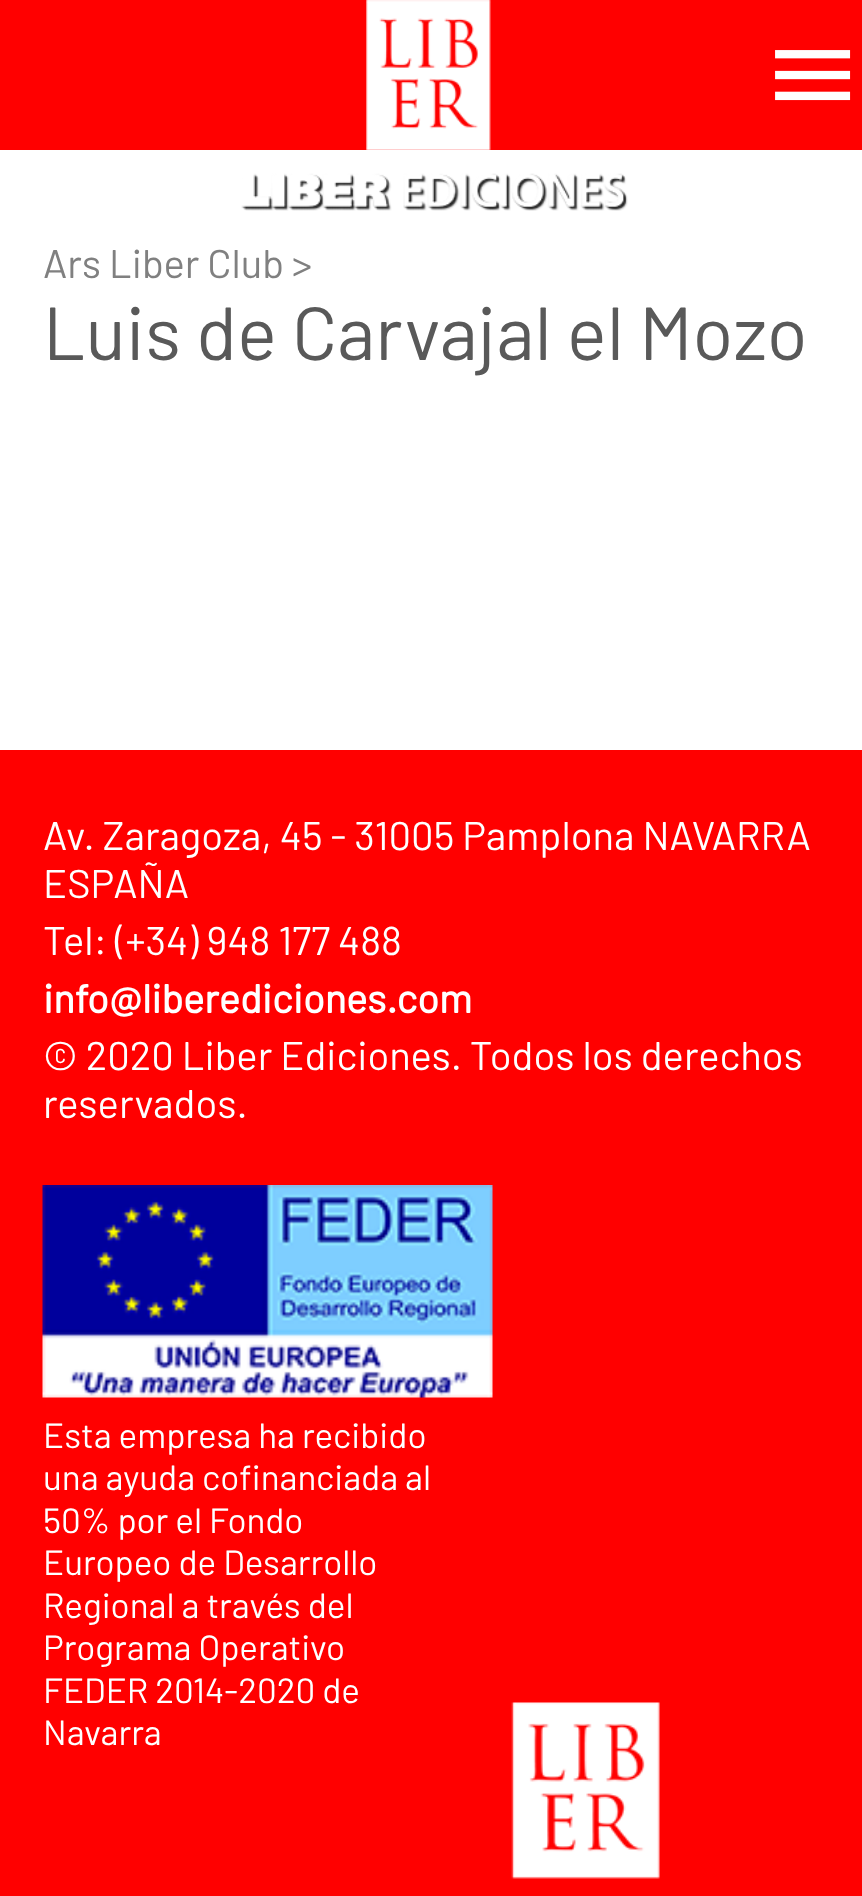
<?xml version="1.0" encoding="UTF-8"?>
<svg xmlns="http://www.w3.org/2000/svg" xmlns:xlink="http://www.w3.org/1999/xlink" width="862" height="1896">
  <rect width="100%" height="100%" fill="#ffffff" />
  <rect width="862" height="150" fill="#ff0000" />
  <image x="775" y="50" width="76" height="51" xlink:href="image1.png" />
  <image x="241" y="0" width="387" height="211" xlink:href="image2.png" />
  <rect y="750" width="862" height="1146" fill="#ff0000" />
  <image x="42" y="1185" width="451" height="213" xlink:href="image3.png" />
  <image x="511" y="1702" width="149" height="177" xlink:href="image4.png" />
  <text x="43" y="278" style="font-family: Barlow; font-size: 40px; fill: #808080">Ars Liber Club &gt;</text>
  <text x="43" y="360" style="font-family: Barlow; font-size: 75px; fill: #595959">Luis de Carvajal el Mozo</text>
  <text x="43" y="850" style="font-family: Barlow; font-size: 40px; fill: #ffffff">Av. Zaragoza, 45 - 31005 Pamplona NAVARRA</text>
  <text x="43" y="898" style="font-family: Barlow; font-size: 40px; fill: #ffffff">ESPAÑA</text>
  <text x="43" y="955" style="font-family: Barlow; font-size: 40px; fill: #ffffff">Tel: (+34) 948 177 488</text>
  <text x="43" y="1013" style="font-family: Barlow; font-size: 40px; font-weight: bold; fill: #ffffff">info@liberediciones.com</text>
  <text x="43" y="1070" style="font-family: Barlow; font-size: 40px; fill: #ffffff">© 2020 Liber Ediciones. Todos los derechos</text>
  <text x="43" y="1118" style="font-family: Barlow; font-size: 40px; fill: #ffffff">reservados.</text>
  <text x="43" y="1448" style="font-family: Barlow; font-size: 35px; fill: #ffffff">Esta empresa ha recibido</text>
  <text x="43" y="1490" style="font-family: Barlow; font-size: 35px; fill: #ffffff">una ayuda cofinanciada al</text>
  <text x="43" y="1533" style="font-family: Barlow; font-size: 35px; fill: #ffffff">50% por el Fondo</text>
  <text x="43" y="1575" style="font-family: Barlow; font-size: 35px; fill: #ffffff">Europeo de Desarrollo</text>
  <text x="43" y="1618" style="font-family: Barlow; font-size: 35px; fill: #ffffff">Regional a través del</text>
  <text x="43" y="1660" style="font-family: Barlow; font-size: 35px; fill: #ffffff">Programa Operativo</text>
  <text x="43" y="1703" style="font-family: Barlow; font-size: 35px; fill: #ffffff">FEDER 2014-2020 de</text>
  <text x="43" y="1745" style="font-family: Barlow; font-size: 35px; fill: #ffffff">Navarra</text>
</svg>
